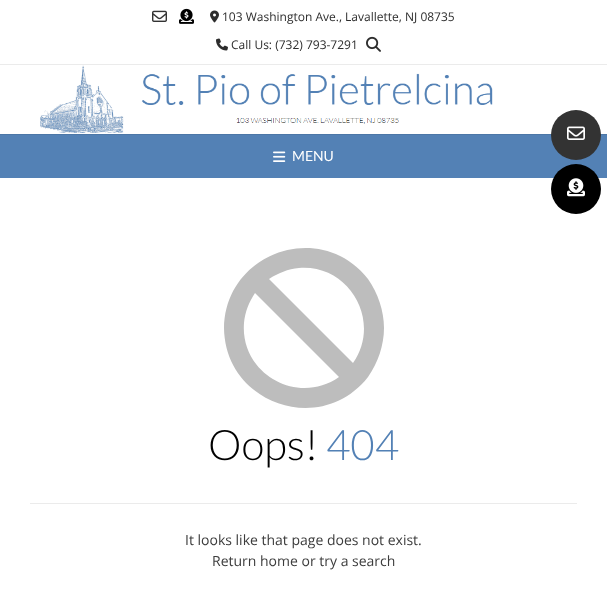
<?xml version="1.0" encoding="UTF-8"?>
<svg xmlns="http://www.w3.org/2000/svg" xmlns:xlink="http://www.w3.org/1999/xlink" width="607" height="613">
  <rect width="100%" height="100%" fill="#ffffff" />
  <rect y="64" width="607" height="1" fill="#ebebeb" />
  <image x="152" y="10" width="15" height="12" xlink:href="image1.png" />
  <image x="179" y="8" width="15" height="16" xlink:href="image2.png" />
  <image x="210" y="10" width="9" height="13" xlink:href="image3.png" />
  <image x="216" y="38" width="12" height="13" xlink:href="image4.png" />
  <image x="366" y="36" width="15" height="16" xlink:href="image5.png" />
  <image x="40" y="65" width="453" height="68" xlink:href="image6.png" />
  <rect y="135" width="607" height="43" fill="#5381b5" />
  <rect y="134" width="607" height="1" fill="#4c77a7" />
  <image x="273" y="151" width="13" height="11" xlink:href="image7.png" />
  <path d="M 339 377 l -84 -84 c -6 9 -10 19 -11 30 c -4 51 54 83 95 54 z m 14 -14 c 29 -41 -3 -99 -54 -95 c -11 1 -21 5 -30 11 z m -129 -35 c 1 -76 97 -109 144 -49 c 10 14 16 32 16 49 c 0 17 -6 35 -16 49 c -47 60 -143 27 -144 -49 z" fill="#bdbdbd" />
  <rect x="30" y="503" width="547" height="1" fill="#ebebeb" />
  <circle cx="576" cy="135" r="25" fill="#333333" />
  <image x="567" y="126" width="18" height="14" xlink:href="image8.png" />
  <circle cx="576" cy="189" r="25" fill="#000000" />
  <image x="567" y="178" width="18" height="19" xlink:href="image9.png" />
  <text x="222" y="21" style="font-family: Open Sans; font-size: 12px; fill: #2d2d2d">103 Washington Ave., Lavallette, NJ 08735</text>
  <text x="231" y="49" style="font-family: Open Sans; font-size: 12px; fill: #2d2d2d">Call Us: (732) 793-7291</text>
  <text x="292" y="161" style="font-family: Lato; font-size: 14px; fill: #ffffff">MENU</text>
  <text x="208" y="460" style="font-family: Lato; font-size: 42px; font-weight: 300; fill: #000000">Oops!</text>
  <text x="326" y="460" style="font-family: Lato; font-size: 42px; font-weight: 300; fill: #5381b5">404</text>
  <text x="185" y="545" style="font-family: Open Sans; font-size: 14px; fill: #3c3c3c">It looks like that page does not exist.</text>
  <text x="212" y="566" style="font-family: Open Sans; font-size: 14px; fill: #3c3c3c">Return home or try a search</text>
</svg>
